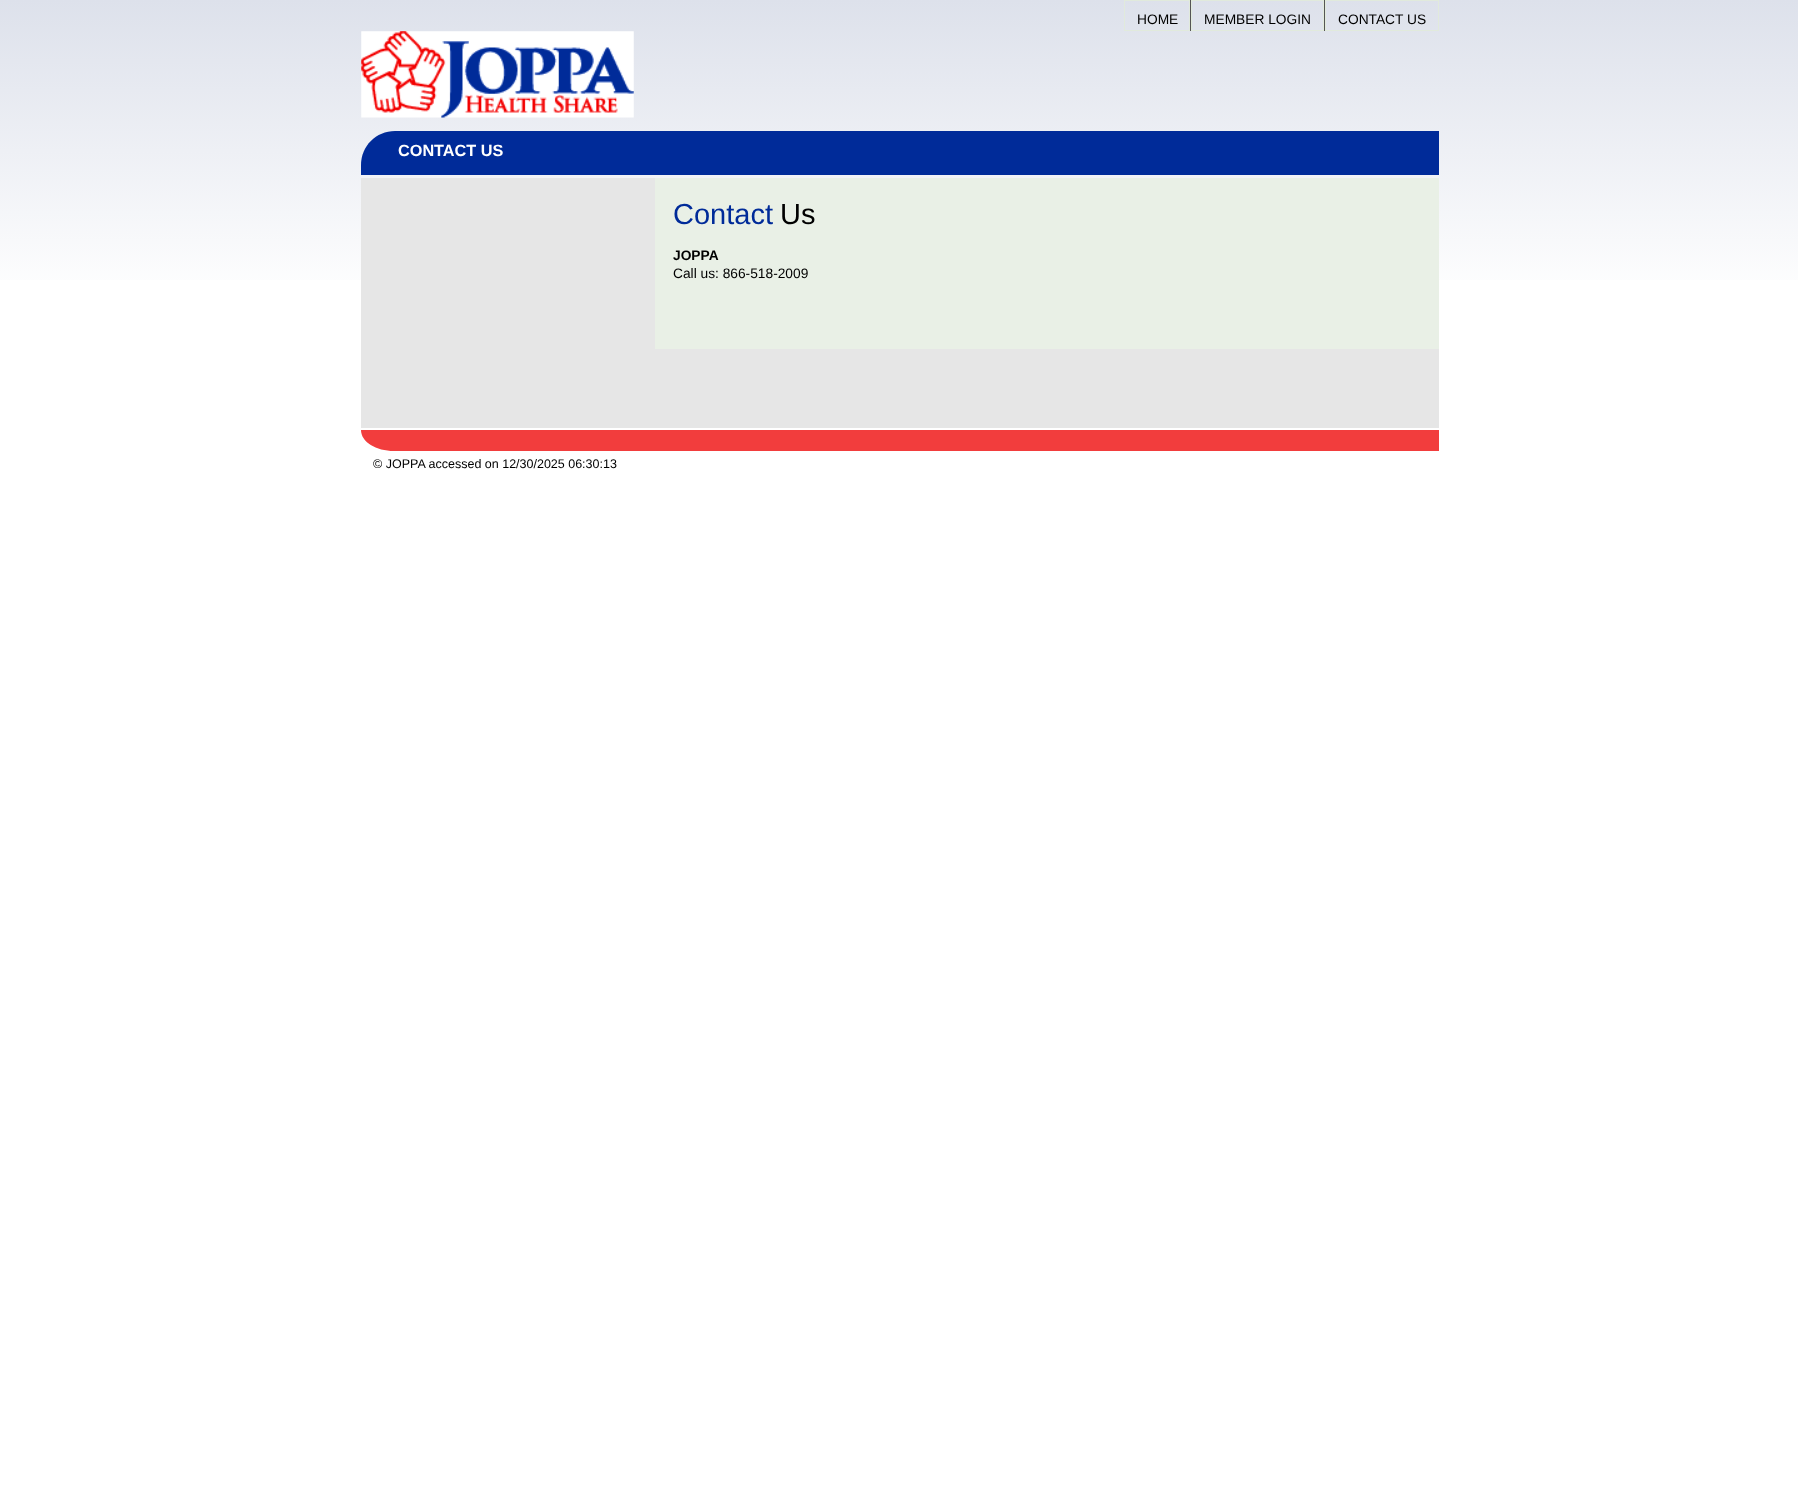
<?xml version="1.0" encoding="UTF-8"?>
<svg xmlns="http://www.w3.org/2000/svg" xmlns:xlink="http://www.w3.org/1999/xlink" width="1798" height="1485">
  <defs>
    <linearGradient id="g1" gradientUnits="userSpaceOnUse" x1="899" y1="0" x2="899" y2="496"><stop offset="0" stop-color="#dde1eb" /><stop offset="0.61" stop-color="#ffffff" /></linearGradient>
  </defs>
  <rect width="100%" height="100%" fill="#ffffff" />
  <rect width="1798" height="280" fill="url(#g1)" />
  <rect x="1190" width="1" height="31" fill="#555555" />
  <rect x="1124.5" y="0.5" width="65" height="30" fill="none" stroke="#e1eadc" />
  <rect x="1324" width="1" height="31" fill="#555555" />
  <rect x="1191.5" y="0.5" width="132" height="30" fill="none" stroke="#e1eadc" />
  <rect x="1325.5" y="0.5" width="113" height="30" fill="none" stroke="#e1eadc" />
  <image x="361" y="31" width="273" height="87" xlink:href="image1.png" />
  <path d="M 395 131 h 1044 v 44 h -1078 v -10 c 0 -19 15 -34 34 -34 z" fill="#002b99" />
  <rect x="361" y="178" width="1078" height="250" fill="#e6e6e6" />
  <rect x="655" y="178" width="784" height="171" fill="#e9f0e6" />
  <path d="M 361 430 h 1078 v 21 h -1045 c -18 0 -33 -9 -33 -21 z" fill="#f23d3d" />
  <text x="1137" y="24" style="font-family: Liberation Sans; font-size: 13.75px; fill: #000000">HOME</text>
  <text x="1204" y="24" style="font-family: Liberation Sans; font-size: 13.75px; fill: #000000">MEMBER LOGIN</text>
  <text x="1338" y="24" style="font-family: Liberation Sans; font-size: 13.75px; fill: #000000">CONTACT US</text>
  <text x="398" y="156" style="font-family: Liberation Sans; font-size: 16.25px; font-weight: bold; fill: #ffffff">CONTACT US</text>
  <text x="673" y="224" style="font-family: Liberation Sans; font-size: 29px; fill: #002b99">Contact</text>
  <text x="780" y="224" style="font-family: Liberation Sans; font-size: 29px; fill: #000000">Us</text>
  <text x="673" y="260" style="font-family: Liberation Sans; font-size: 13.75px; font-weight: bold; fill: #000000">JOPPA</text>
  <text x="673" y="278" style="font-family: Liberation Sans; font-size: 13.75px; fill: #000000">Call us: 866-518-2009</text>
  <text x="373" y="468" style="font-family: Liberation Sans; font-size: 12.5px; fill: #000000">© JOPPA accessed on 12/30/2025 06:30:13</text>
</svg>
